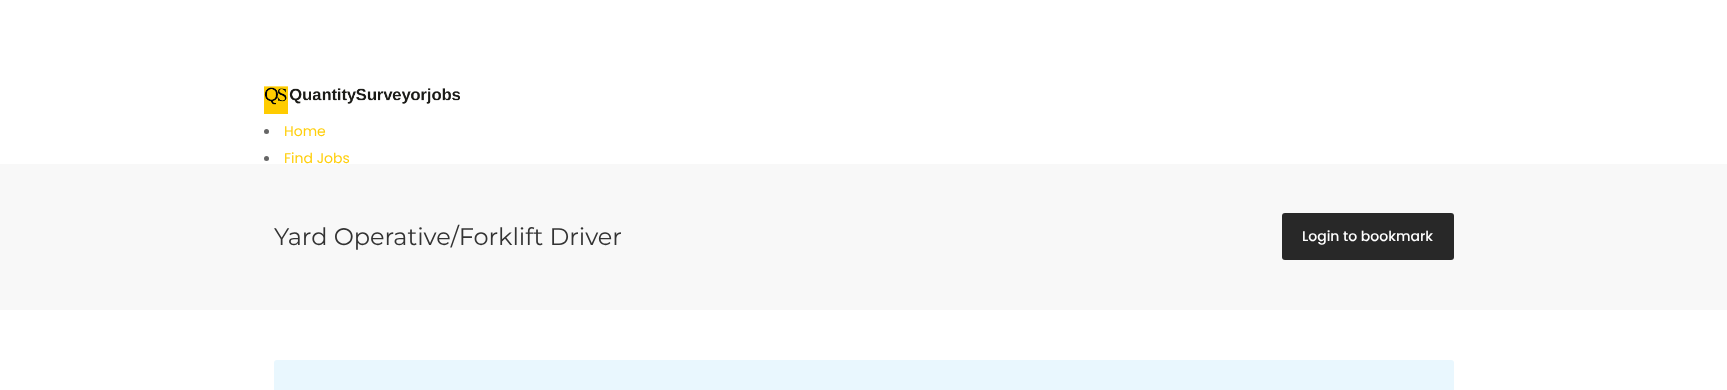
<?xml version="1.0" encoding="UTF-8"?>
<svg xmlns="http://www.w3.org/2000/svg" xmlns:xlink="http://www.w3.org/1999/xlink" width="1727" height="390">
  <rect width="100%" height="100%" fill="#ffffff" />
  <image x="264" y="86" width="196" height="28" xlink:href="image1.png" />
  <circle cx="266.5" cy="131.5" r="2.5" fill="#666666" />
  <circle cx="266.5" cy="158.5" r="2.5" fill="#666666" />
  <rect y="164" width="1727" height="146" fill="#f8f8f8" />
  <rect x="1282" y="213" width="172" height="47" rx="3" fill="#282828" />
  <rect x="274" y="360" width="1180" height="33" rx="3" fill="#e9f7fe" />
  <text x="284" y="136" style="font-family: Poppins; font-size: 14px; fill: #ffcf0d">Home</text>
  <text x="284" y="163" style="font-family: Poppins; font-size: 14px; fill: #ffcf0d">Find Jobs</text>
  <text x="274" y="245" style="font-family: Montserrat; font-size: 24px; fill: #333333">Yard Operative/Forklift Driver</text>
  <text x="1302" y="241" style="font-family: Poppins; font-size: 14px; font-weight: 500; fill: #ffffff">Login to bookmark</text>
</svg>
